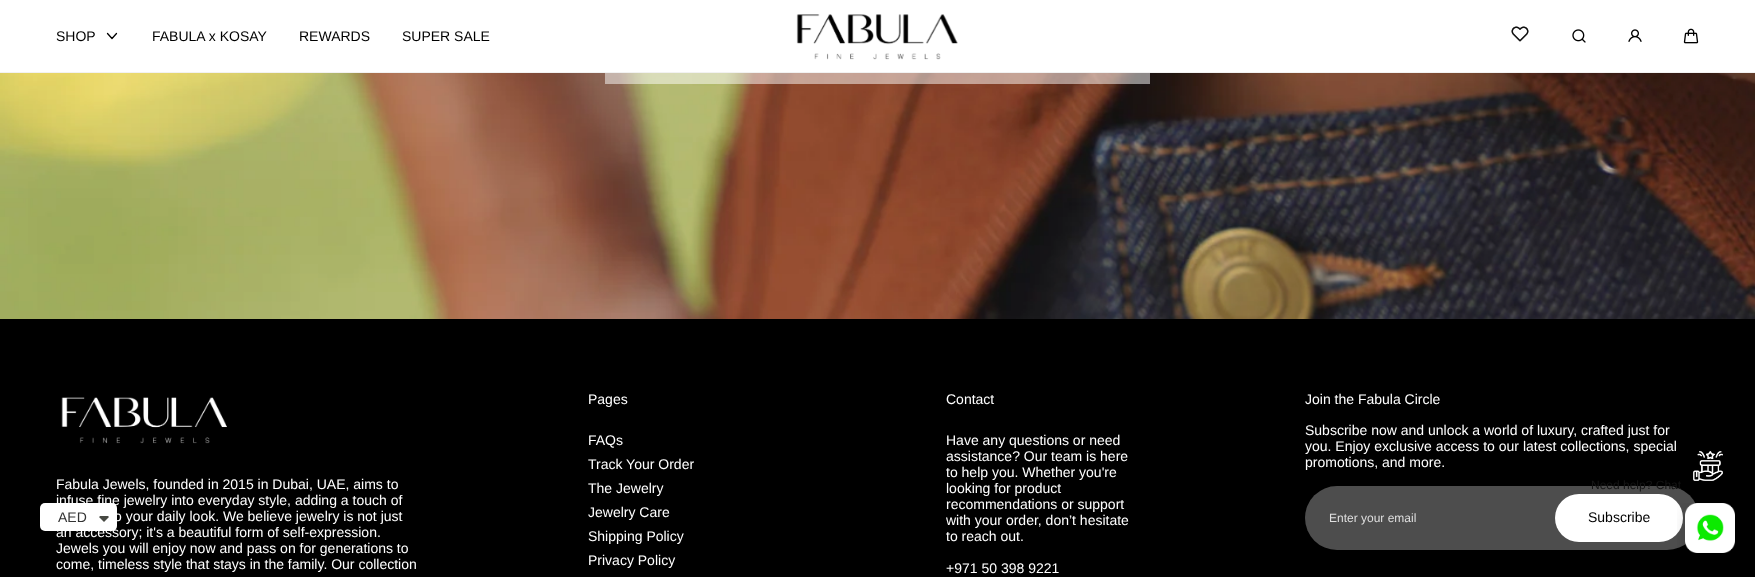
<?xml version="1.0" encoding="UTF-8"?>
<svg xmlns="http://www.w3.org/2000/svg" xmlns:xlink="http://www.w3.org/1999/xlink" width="1755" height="577">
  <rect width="100%" height="100%" fill="#000000" />
  <rect width="1755" height="72" fill="#ffffff" />
  <rect y="72" width="1755" height="1" fill="#f2f2f2" />
  <path d="M 107.5 33.5 l 4.5 5 l 4.5 -5" fill="none" stroke="#000000" stroke-width="1.3" stroke-linecap="round" stroke-linejoin="round" />
  <image x="796" y="14" width="162" height="46" xlink:href="image1.png" />
  <image x="1511" y="26" width="18" height="16" xlink:href="image2.png" />
  <image x="1572" y="29" width="14" height="14" xlink:href="image3.png" />
  <image x="1628" y="29" width="14" height="13" xlink:href="image4.png" />
  <image x="1683" y="28" width="16" height="16" xlink:href="image5.png" />
  <image x="0" y="73" width="1755" height="246" xlink:href="image6.png" />
  <rect x="605" y="73" width="545" height="11" fill="#ffffff" fill-opacity="0.5" />
  <image x="61" y="397" width="166" height="47" xlink:href="image7.png" />
  <rect x="1305" y="486" width="394" height="64" rx="32" fill="#4d4d4d" />
  <rect x="1555" y="494" width="128" height="48" rx="24" fill="#ffffff" />
  <image x="1693" y="451" width="30" height="30" xlink:href="image8.png" />
  <image x="1677" y="503" width="58" height="50" xlink:href="image9.png" />
  <rect x="40" y="503" width="77" height="28" rx="5" fill="#ffffff" />
  <path d="M 101 516 c -1 0 -1.5 0.5 -2 1 l 5 5 l 5 -5 l -1 -1 z" fill="#474942" />
  <text x="56" y="41" style="font-family: Arimo; font-size: 14px; fill: #000000">SHOP</text>
  <text x="152" y="41" style="font-family: Arimo; font-size: 14px; fill: #000000">FABULA x KOSAY</text>
  <text x="299" y="41" style="font-family: Arimo; font-size: 14px; fill: #000000">REWARDS</text>
  <text x="402" y="41" style="font-family: Arimo; font-size: 14px; fill: #000000">SUPER SALE</text>
  <text x="56" y="489" style="font-family: Arimo; font-size: 14px; fill: #ffffff">Fabula Jewels, founded in 2015 in Dubai, UAE, aims to</text>
  <text x="56" y="505" style="font-family: Arimo; font-size: 14px; fill: #ffffff">infuse fine jewelry into everyday style, adding a touch of</text>
  <text x="114" y="521" style="font-family: Arimo; font-size: 14px; fill: #ffffff">o your daily look. We believe jewelry is not just</text>
  <text x="56" y="537" style="font-family: Arimo; font-size: 14px; fill: #ffffff">an accessory; it's a beautiful form of self-expression.</text>
  <text x="56" y="553" style="font-family: Arimo; font-size: 14px; fill: #ffffff">Jewels you will enjoy now and pass on for generations to</text>
  <text x="56" y="569" style="font-family: Arimo; font-size: 14px; fill: #ffffff">come, timeless style that stays in the family. Our collection</text>
  <text x="588" y="404" style="font-family: Arimo; font-size: 14px; fill: #ffffff">Pages</text>
  <text x="588" y="445" style="font-family: Arimo; font-size: 14px; fill: #ffffff">FAQs</text>
  <text x="588" y="469" style="font-family: Arimo; font-size: 14px; fill: #ffffff">Track Your Order</text>
  <text x="588" y="493" style="font-family: Arimo; font-size: 14px; fill: #ffffff">The Jewelry</text>
  <text x="588" y="517" style="font-family: Arimo; font-size: 14px; fill: #ffffff">Jewelry Care</text>
  <text x="588" y="541" style="font-family: Arimo; font-size: 14px; fill: #ffffff">Shipping Policy</text>
  <text x="588" y="565" style="font-family: Arimo; font-size: 14px; fill: #ffffff">Privacy Policy</text>
  <text x="946" y="404" style="font-family: Arimo; font-size: 14px; fill: #ffffff">Contact</text>
  <text x="946" y="445" style="font-family: Arimo; font-size: 14px; fill: #ffffff">Have any questions or need</text>
  <text x="946" y="461" style="font-family: Arimo; font-size: 14px; fill: #ffffff">assistance? Our team is here</text>
  <text x="946" y="477" style="font-family: Arimo; font-size: 14px; fill: #ffffff">to help you. Whether you're</text>
  <text x="946" y="493" style="font-family: Arimo; font-size: 14px; fill: #ffffff">looking for product</text>
  <text x="946" y="509" style="font-family: Arimo; font-size: 14px; fill: #ffffff">recommendations or support</text>
  <text x="946" y="525" style="font-family: Arimo; font-size: 14px; fill: #ffffff">with your order, don’t hesitate</text>
  <text x="946" y="541" style="font-family: Arimo; font-size: 14px; fill: #ffffff">to reach out.</text>
  <text x="946" y="573" style="font-family: Arimo; font-size: 14px; fill: #ffffff">+971 50 398 9221</text>
  <text x="1305" y="404" style="font-family: Arimo; font-size: 14px; fill: #ffffff">Join the Fabula Circle</text>
  <text x="1305" y="435" style="font-family: Arimo; font-size: 14px; fill: #ffffff">Subscribe now and unlock a world of luxury, crafted just for</text>
  <text x="1305" y="451" style="font-family: Arimo; font-size: 14px; fill: #ffffff">you. Enjoy exclusive access to our latest collections, special</text>
  <text x="1305" y="467" style="font-family: Arimo; font-size: 14px; fill: #ffffff">promotions, and more.</text>
  <text x="1329" y="522" style="font-family: Arimo; font-size: 12px; fill: #dfdfdf">Enter your email</text>
  <text x="1588" y="522" style="font-family: Arimo; font-size: 14px; fill: #000000">Subscribe</text>
  <text x="1591" y="489" style="font-family: Arimo; font-size: 12px; fill: #151515">Need help? Chat</text>
  <text x="58" y="522" style="font-family: Arimo; font-size: 14px; fill: #333333">AED</text>
</svg>
